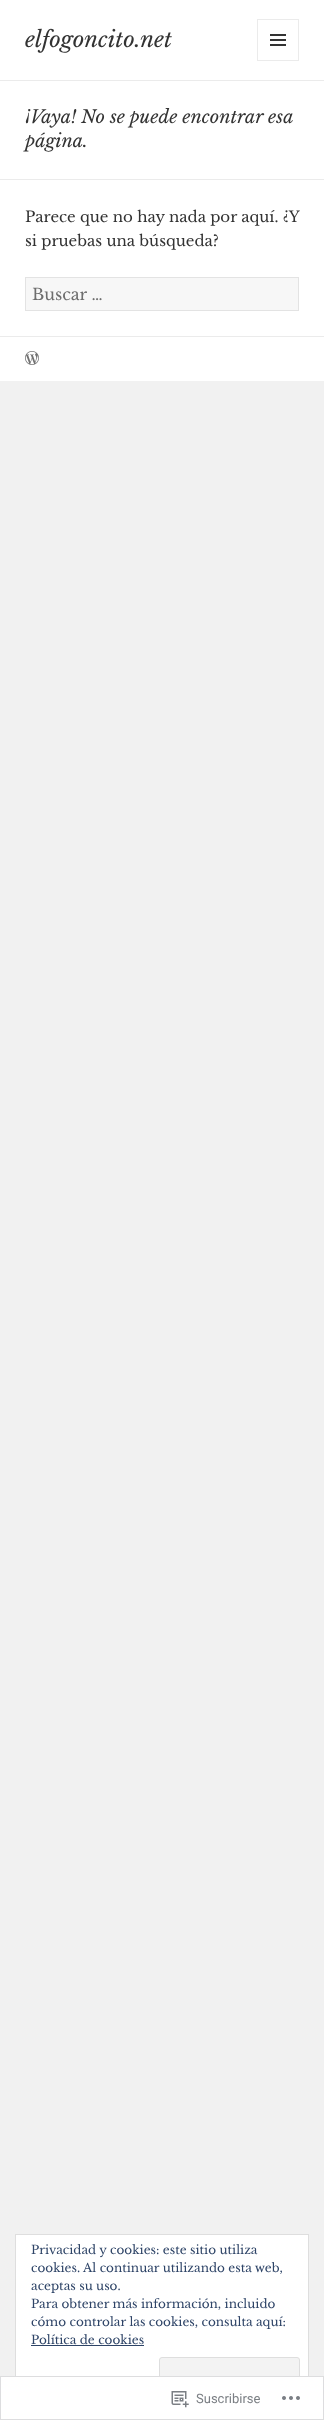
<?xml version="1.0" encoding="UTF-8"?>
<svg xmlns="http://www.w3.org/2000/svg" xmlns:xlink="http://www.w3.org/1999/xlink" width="324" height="2420">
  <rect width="100%" height="100%" fill="#f1f1f1" />
  <rect width="324" height="80" fill="#ffffff" />
  <rect y="80" width="324" height="1" fill="#ebebeb" />
  <rect x="257.5" y="19.5" width="41" height="41" fill="none" stroke="#ebebeb" />
  <image x="270" y="34" width="16" height="12" xlink:href="image1.png" />
  <rect y="81" width="324" height="98" fill="#ffffff" />
  <rect y="179" width="324" height="1" fill="#ebebeb" />
  <rect y="180" width="324" height="156" fill="#ffffff" />
  <rect x="25.5" y="277.5" width="273" height="33" fill="#f7f7f7" stroke="#e3e3e3" />
  <rect y="337" width="324" height="44" fill="#ffffff" />
  <rect y="336" width="324" height="1" fill="#ebebeb" />
  <image x="25" y="351" width="14" height="14" xlink:href="image2.png" />
  <rect x="15.5" y="2234.5" width="293" height="170" fill="#ffffff" stroke="#dedede" />
  <rect x="31" y="2345" width="113" height="1" fill="#2e4467" />
  <rect x="159.5" y="2357.5" width="140" height="38" rx="2.5" fill="#f3f3f3" stroke="#dedede" />
  <rect y="2376" width="324" height="44" fill="#ffffff" fill-opacity="0.98" />
  <rect x="0.5" y="2376.5" width="323" height="43" fill="none" stroke="#dcdcde" stroke-opacity="0.98" />
  <image x="171" y="2391" width="18" height="17" xlink:href="image3.png" />
  <image x="282" y="2396" width="18" height="4" xlink:href="image4.png" />
  <text x="25" y="47" style="font-family: Libre Baskerville; font-size: 22px; font-style: italic; fill: #333333">elfogoncito.net</text>
  <text x="25" y="123" style="font-family: Libre Baskerville; font-size: 18px; font-style: italic; fill: #333333">¡Vaya! No se puede encontrar esa</text>
  <text x="25" y="147" style="font-family: Libre Baskerville; font-size: 18px; font-style: italic; fill: #333333">página.</text>
  <text x="25" y="222" style="font-family: Libre Baskerville; font-size: 15px; fill: #333333">Parece que no hay nada por aquí. ¿Y</text>
  <text x="25" y="246" style="font-family: Libre Baskerville; font-size: 15px; fill: #333333">si pruebas una búsqueda?</text>
  <text x="32" y="300" style="font-family: Libre Baskerville; font-size: 16px; fill: #6e6e6e">Buscar …</text>
  <text x="31" y="2254" style="font-family: Libre Baskerville; font-size: 12px; fill: #2e4467">Privacidad y cookies: este sitio utiliza</text>
  <text x="31" y="2272" style="font-family: Libre Baskerville; font-size: 12px; fill: #2e4467">cookies. Al continuar utilizando esta web,</text>
  <text x="31" y="2290" style="font-family: Libre Baskerville; font-size: 12px; fill: #2e4467">aceptas su uso.</text>
  <text x="31" y="2308" style="font-family: Libre Baskerville; font-size: 12px; fill: #2e4467">Para obtener más información, incluido</text>
  <text x="31" y="2326" style="font-family: Libre Baskerville; font-size: 12px; fill: #2e4467">cómo controlar las cookies, consulta aquí:</text>
  <text x="31" y="2344" style="font-family: Libre Baskerville; font-size: 12px; fill: #2e4467">Política de cookies</text>
  <text x="196" y="2403" style="font-family: Roboto; font-size: 13px; fill: #7b7f84">Suscribirse</text>
</svg>
